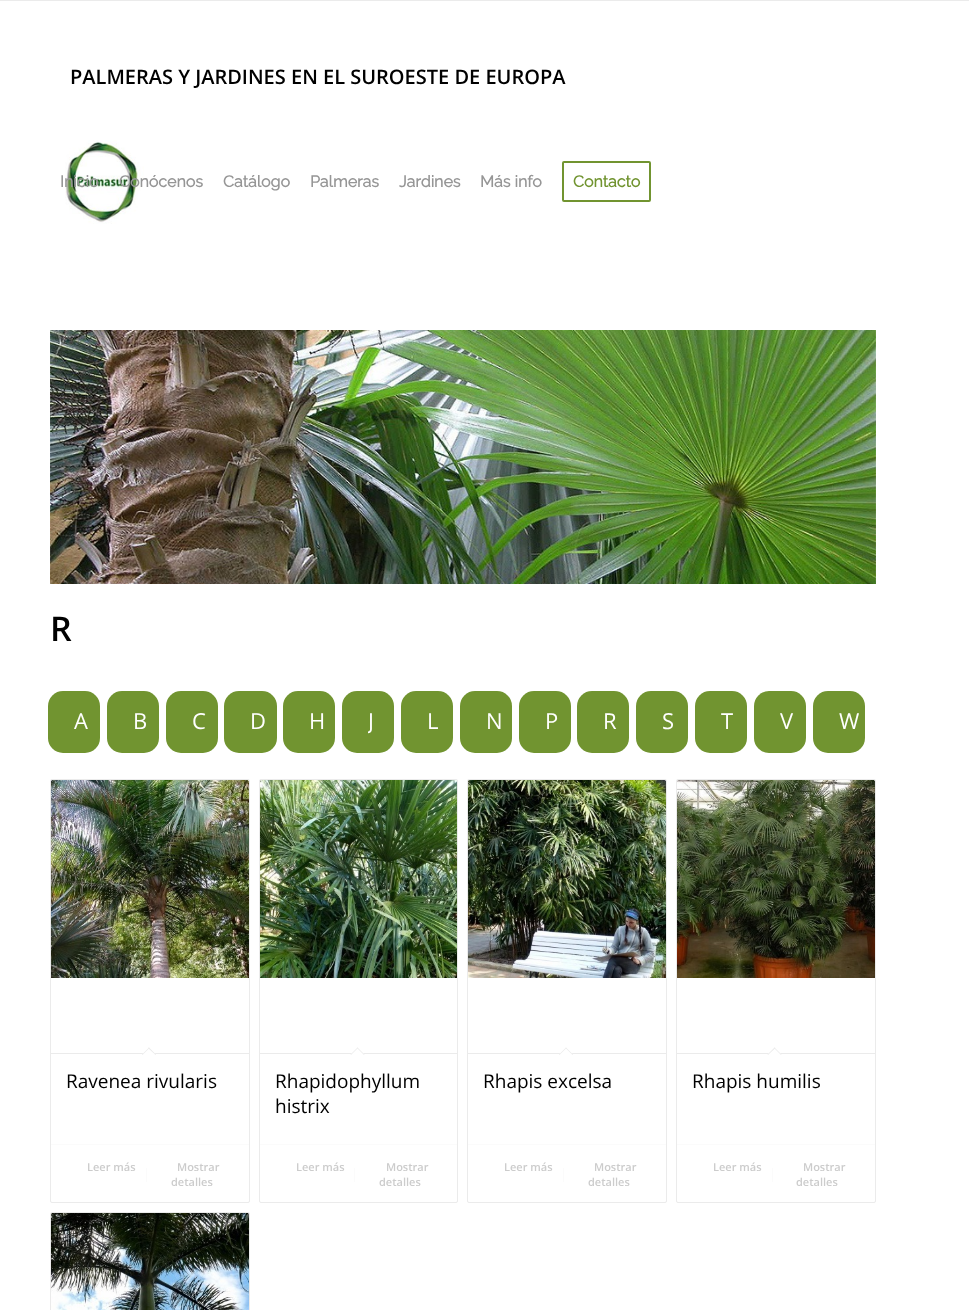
<?xml version="1.0" encoding="UTF-8"?>
<svg xmlns="http://www.w3.org/2000/svg" xmlns:xlink="http://www.w3.org/1999/xlink" width="969" height="1310">
  <defs>
    <clipPath id="clip1"><rect x="368" y="706" width="6" height="29" rx="1" /></clipPath>
  </defs>
  <rect width="100%" height="100%" fill="#ffffff" />
  <rect width="969" height="1" fill="#ebebeb" />
  <image x="65" y="140" width="79" height="84" xlink:href="image1.png" />
  <rect x="563" y="162" width="87" height="39" rx="1" fill="none" stroke="#719430" stroke-width="2" />
  <image x="50" y="330" width="826" height="254" xlink:href="image2.png" />
  <rect x="48" y="691" width="52" height="62" rx="15" fill="#719430" />
  <rect x="107" y="691" width="52" height="62" rx="15" fill="#719430" />
  <rect x="166" y="691" width="52" height="62" rx="15" fill="#719430" />
  <rect x="224" y="691" width="53" height="62" rx="15" fill="#719430" />
  <rect x="283" y="691" width="52" height="62" rx="15" fill="#719430" />
  <rect x="342" y="691" width="52" height="62" rx="15" fill="#719430" />
  <rect x="401" y="691" width="52" height="62" rx="15" fill="#719430" />
  <rect x="460" y="691" width="52" height="62" rx="15" fill="#719430" />
  <rect x="519" y="691" width="52" height="62" rx="15" fill="#719430" />
  <rect x="577" y="691" width="52" height="62" rx="15" fill="#719430" />
  <rect x="636" y="691" width="52" height="62" rx="15" fill="#719430" />
  <rect x="695" y="691" width="52" height="62" rx="15" fill="#719430" />
  <rect x="754" y="691" width="52" height="62" rx="15" fill="#719430" />
  <rect x="813" y="691" width="52" height="62" rx="15" fill="#719430" />
  <rect x="50.5" y="779.5" width="199" height="423" rx="1.5" fill="none" stroke="#ebebeb" />
  <image x="51" y="780" width="198" height="198" xlink:href="image3.png" />
  <rect x="51" y="1053" width="198" height="1" fill="#ebebeb" />
  <path d="M 149 1047.5 l 7 7 l -7 7 l -7 -7 z" fill="#ffffff" />
  <path d="M 149 1047.5 l 7 7 l -0.5 0.5 l -7.5 -7 z" fill="#ebebeb" />
  <path d="M 149 1047.5 l 0.5 0.5 l -7 7 l -0.5 -0.5 z" fill="#ebebeb" />
  <rect x="51" y="1144" width="198" height="1" fill="#fbfbfb" />
  <rect x="146" y="1168" width="1" height="14" fill="#fbfbfb" />
  <rect x="259.5" y="779.5" width="198" height="423" rx="1.5" fill="none" stroke="#ebebeb" />
  <image x="260" y="780" width="197" height="198" xlink:href="image4.png" />
  <rect x="260" y="1053" width="197" height="1" fill="#ebebeb" />
  <path d="M 357.5 1047.5 l 7 7 l -7 7 l -7 -7 z" fill="#ffffff" />
  <path d="M 357.5 1047.5 l 7 7 l -0.5 0.5 l -7 -7 z" fill="#ebebeb" />
  <path d="M 357.5 1047.5 l 0.5 0.5 l -7 7 l -0.5 -0.5 z" fill="#ebebeb" />
  <rect x="260" y="1144" width="197" height="1" fill="#fbfbfb" />
  <rect x="354" y="1168" width="1" height="14" fill="#fbfbfb" />
  <rect x="467.5" y="779.5" width="199" height="423" rx="1.5" fill="none" stroke="#ebebeb" />
  <image x="468" y="780" width="198" height="198" xlink:href="image5.png" />
  <rect x="468" y="1053" width="198" height="1" fill="#ebebeb" />
  <path d="M 566 1047.5 l 7 7 l -7 7 l -7 -7 z" fill="#ffffff" />
  <path d="M 566 1047.5 l 7 7 l -0.5 0.5 l -7 -7 z" fill="#ebebeb" />
  <path d="M 566 1047.5 l 0.5 0.5 l -7 7 l -0.5 -0.5 z" fill="#ebebeb" />
  <rect x="468" y="1144" width="198" height="1" fill="#fbfbfb" />
  <rect x="563" y="1168" width="1" height="14" fill="#fbfbfb" />
  <rect x="676.5" y="779.5" width="199" height="423" rx="1.5" fill="none" stroke="#ebebeb" />
  <image x="677" y="780" width="198" height="198" xlink:href="image6.png" />
  <rect x="677" y="1053" width="198" height="1" fill="#ebebeb" />
  <path d="M 774.5 1047.5 l 7 7 l -7 7 l -7 -7 z" fill="#ffffff" />
  <path d="M 774.5 1047.5 l 7 7 l -0.5 0.5 l -7 -7 z" fill="#ebebeb" />
  <path d="M 774.5 1047.5 l 1 0.5 l -7.5 7 l -0.5 -0.5 z" fill="#ebebeb" />
  <rect x="677" y="1144" width="198" height="1" fill="#fbfbfb" />
  <rect x="772" y="1168" width="1" height="14" fill="#fbfbfb" />
  <rect x="50.5" y="1212.5" width="199" height="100" rx="1.5" fill="none" stroke="#ebebeb" />
  <image x="51" y="1213" width="198" height="97" xlink:href="image7.png" />
  <text x="70" y="84" style="font-family: Open Sans; font-size: 20px; font-weight: 600; fill: #000000">PALMERAS Y JARDINES EN EL SUROESTE DE EUROPA</text>
  <text x="60" y="187" style="font-family: Raleway; font-size: 16px; font-weight: bold; fill: #969696">Inicio</text>
  <text x="119" y="187" style="font-family: Raleway; font-size: 16px; font-weight: bold; fill: #969696">Conócenos</text>
  <text x="223" y="187" style="font-family: Raleway; font-size: 16px; font-weight: bold; fill: #969696">Catálogo</text>
  <text x="310" y="187" style="font-family: Raleway; font-size: 16px; font-weight: bold; fill: #969696">Palmeras</text>
  <text x="399" y="187" style="font-family: Raleway; font-size: 16px; font-weight: bold; fill: #969696">Jardines</text>
  <text x="480" y="187" style="font-family: Raleway; font-size: 16px; font-weight: bold; fill: #969696">Más info</text>
  <text x="573" y="187" style="font-family: Raleway; font-size: 16px; font-weight: bold; fill: #719430">Contacto</text>
  <text x="50" y="641" style="font-family: Open Sans; font-size: 34px; font-weight: 600; fill: #000000">R</text>
  <text x="74" y="729" style="font-family: Open Sans; font-size: 22px; fill: #ffffff">A</text>
  <text x="133" y="729" style="font-family: Open Sans; font-size: 22px; fill: #ffffff">B</text>
  <text x="192" y="729" style="font-family: Open Sans; font-size: 22px; fill: #ffffff">C</text>
  <text x="250" y="729" style="font-family: Open Sans; font-size: 22px; fill: #ffffff">D</text>
  <text x="309" y="729" style="font-family: Open Sans; font-size: 22px; fill: #ffffff">H</text>
  <g clip-path="url(#clip1)">
    <text x="368" y="729" style="font-family: Open Sans; font-size: 22px; fill: #ffffff">J</text>
  </g>
  <text x="427" y="729" style="font-family: Open Sans; font-size: 22px; fill: #ffffff">L</text>
  <text x="486" y="729" style="font-family: Open Sans; font-size: 22px; fill: #ffffff">N</text>
  <text x="545" y="729" style="font-family: Open Sans; font-size: 22px; fill: #ffffff">P</text>
  <text x="603" y="729" style="font-family: Open Sans; font-size: 22px; fill: #ffffff">R</text>
  <text x="662" y="729" style="font-family: Open Sans; font-size: 22px; fill: #ffffff">S</text>
  <text x="721" y="729" style="font-family: Open Sans; font-size: 22px; fill: #ffffff">T</text>
  <text x="780" y="729" style="font-family: Open Sans; font-size: 22px; fill: #ffffff">V</text>
  <text x="839" y="729" style="font-family: Open Sans; font-size: 22px; fill: #ffffff">W</text>
  <text x="66" y="1088" style="font-family: Open Sans; font-size: 19px; fill: #000000">Ravenea rivularis</text>
  <text x="87" y="1171" style="font-family: Open Sans; font-size: 11px; font-weight: 600; fill: #cccccc">Leer más</text>
  <text x="177" y="1171" style="font-family: Open Sans; font-size: 11px; font-weight: 600; fill: #cccccc">Mostrar</text>
  <text x="171" y="1186" style="font-family: Open Sans; font-size: 11px; font-weight: 600; fill: #cccccc">detalles</text>
  <text x="275" y="1088" style="font-family: Open Sans; font-size: 19px; fill: #000000">Rhapidophyllum</text>
  <text x="275" y="1113" style="font-family: Open Sans; font-size: 19px; fill: #000000">histrix</text>
  <text x="296" y="1171" style="font-family: Open Sans; font-size: 11px; font-weight: 600; fill: #cccccc">Leer más</text>
  <text x="386" y="1171" style="font-family: Open Sans; font-size: 11px; font-weight: 600; fill: #cccccc">Mostrar</text>
  <text x="379" y="1186" style="font-family: Open Sans; font-size: 11px; font-weight: 600; fill: #cccccc">detalles</text>
  <text x="483" y="1088" style="font-family: Open Sans; font-size: 19px; fill: #000000">Rhapis excelsa</text>
  <text x="504" y="1171" style="font-family: Open Sans; font-size: 11px; font-weight: 600; fill: #cccccc">Leer más</text>
  <text x="594" y="1171" style="font-family: Open Sans; font-size: 11px; font-weight: 600; fill: #cccccc">Mostrar</text>
  <text x="588" y="1186" style="font-family: Open Sans; font-size: 11px; font-weight: 600; fill: #cccccc">detalles</text>
  <text x="692" y="1088" style="font-family: Open Sans; font-size: 19px; fill: #000000">Rhapis humilis</text>
  <text x="713" y="1171" style="font-family: Open Sans; font-size: 11px; font-weight: 600; fill: #cccccc">Leer más</text>
  <text x="803" y="1171" style="font-family: Open Sans; font-size: 11px; font-weight: 600; fill: #cccccc">Mostrar</text>
  <text x="796" y="1186" style="font-family: Open Sans; font-size: 11px; font-weight: 600; fill: #cccccc">detalles</text>
</svg>
